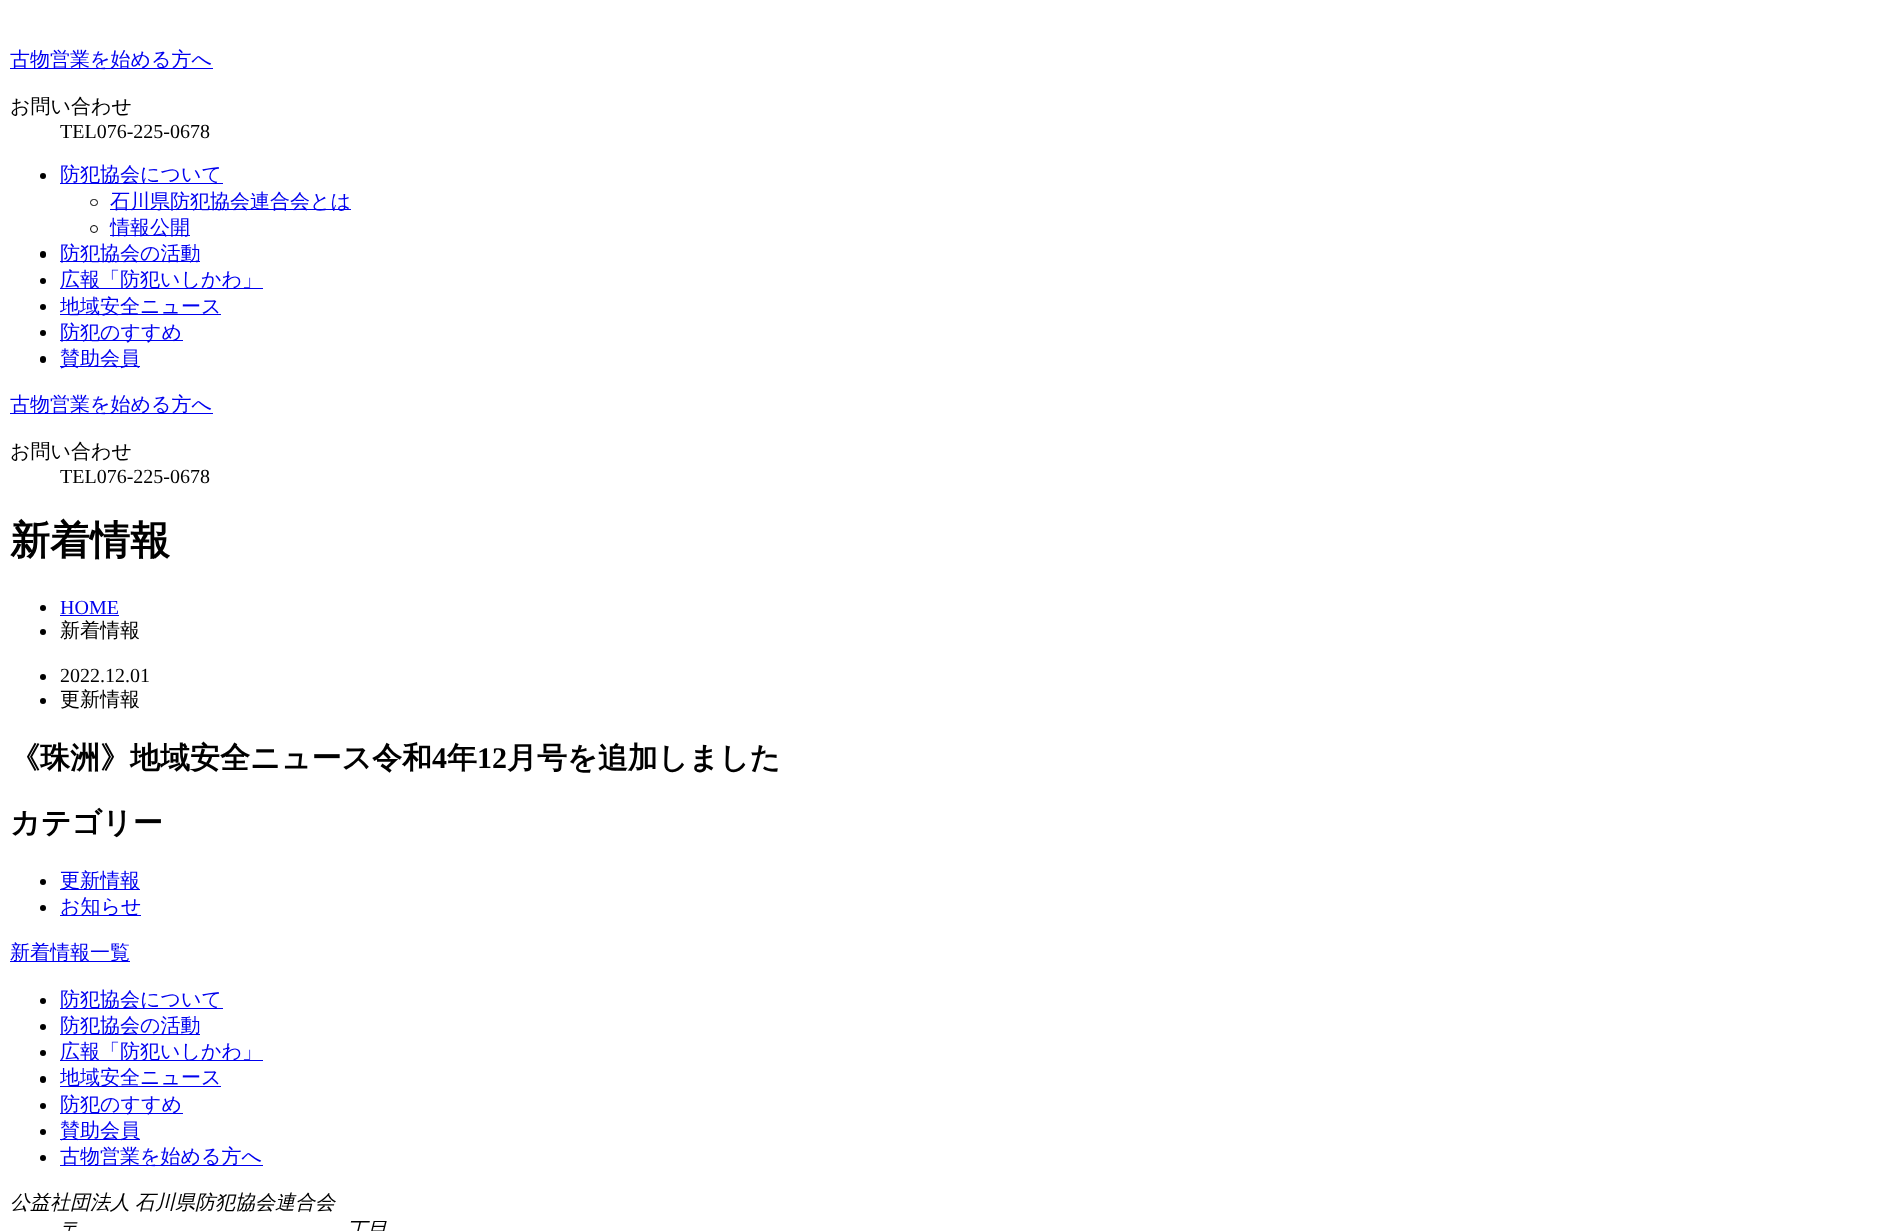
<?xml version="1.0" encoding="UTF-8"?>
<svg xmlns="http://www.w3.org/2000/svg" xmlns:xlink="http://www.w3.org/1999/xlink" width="1886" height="1231">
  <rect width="100%" height="100%" fill="#ffffff" />
  <rect x="10" y="68" width="203" height="1" fill="#0000ee" />
  <circle cx="43" cy="176" r="3" fill="#000000" />
  <rect x="60" y="183" width="163" height="1" fill="#0000ee" />
  <rect x="90.5" y="199.5" width="7" height="6" rx="3" fill="none" stroke="#000000" />
  <rect x="110" y="209" width="241" height="1" fill="#0000ee" />
  <circle cx="94" cy="229" r="3.5" fill="none" stroke="#000000" />
  <rect x="110" y="235" width="80" height="1" fill="#0000ee" />
  <rect x="40" y="251" width="6" height="7" rx="3" fill="#000000" />
  <rect x="60" y="261" width="140" height="1" fill="#0000ee" />
  <circle cx="43" cy="281" r="3" fill="#000000" />
  <rect x="60" y="288" width="203" height="1" fill="#0000ee" />
  <circle cx="43" cy="307" r="3" fill="#000000" />
  <rect x="60" y="314" width="161" height="1" fill="#0000ee" />
  <circle cx="43" cy="333" r="3" fill="#000000" />
  <rect x="60" y="340" width="123" height="1" fill="#0000ee" />
  <rect x="40" y="356" width="6" height="7" rx="3" fill="#000000" />
  <rect x="60" y="366" width="80" height="1" fill="#0000ee" />
  <rect x="10" y="413" width="203" height="1" fill="#0000ee" />
  <circle cx="43" cy="608" r="3" fill="#000000" />
  <rect x="60" y="615" width="59" height="1" fill="#0000ee" />
  <circle cx="43" cy="632" r="3" fill="#000000" />
  <circle cx="43" cy="677" r="3" fill="#000000" />
  <circle cx="43" cy="701" r="3" fill="#000000" />
  <circle cx="43" cy="882" r="3" fill="#000000" />
  <rect x="60" y="889" width="80" height="1" fill="#0000ee" />
  <circle cx="43" cy="908" r="3" fill="#000000" />
  <rect x="60" y="915" width="81" height="1" fill="#0000ee" />
  <rect x="10" y="961" width="120" height="1" fill="#0000ee" />
  <circle cx="43" cy="1001" r="3" fill="#000000" />
  <rect x="60" y="1008" width="163" height="1" fill="#0000ee" />
  <circle cx="43" cy="1027" r="3" fill="#000000" />
  <rect x="60" y="1034" width="140" height="1" fill="#0000ee" />
  <circle cx="43" cy="1053" r="3" fill="#000000" />
  <rect x="60" y="1060" width="203" height="1" fill="#0000ee" />
  <rect x="40" y="1076" width="6" height="7" rx="3" fill="#000000" />
  <rect x="60" y="1086" width="161" height="1" fill="#0000ee" />
  <circle cx="43" cy="1106" r="3" fill="#000000" />
  <rect x="60" y="1113" width="123" height="1" fill="#0000ee" />
  <circle cx="43" cy="1132" r="3" fill="#000000" />
  <rect x="60" y="1139" width="80" height="1" fill="#0000ee" />
  <circle cx="43" cy="1158" r="3" fill="#000000" />
  <rect x="60" y="1165" width="203" height="1" fill="#0000ee" />
  <text x="10" y="66" style="font-family: WenQuanYi Zen Hei; font-size: 20px; font-weight: 500; fill: #0000ee">古物営業を始める方へ</text>
  <text x="10" y="113" style="font-family: WenQuanYi Zen Hei; font-size: 20px; font-weight: 500; fill: #000000">お問い合わせ</text>
  <text x="60" y="138" style="font-family: Liberation Serif; font-size: 20px; fill: #000000">TEL076-225-0678</text>
  <text x="60" y="181" style="font-family: WenQuanYi Zen Hei; font-size: 20px; font-weight: 500; fill: #0000ee">防犯協会について</text>
  <text x="110" y="208" style="font-family: WenQuanYi Zen Hei; font-size: 20px; font-weight: 500; fill: #0000ee">石川県防犯協会連合会とは</text>
  <text x="110" y="234" style="font-family: WenQuanYi Zen Hei; font-size: 20px; font-weight: 500; fill: #0000ee">情報公開</text>
  <text x="60" y="260" style="font-family: WenQuanYi Zen Hei; font-size: 20px; font-weight: 500; fill: #0000ee">防犯協会の活動</text>
  <text x="60" y="286" style="font-family: WenQuanYi Zen Hei; font-size: 20px; font-weight: 500; fill: #0000ee">広報「防犯いしかわ」</text>
  <text x="60" y="313" style="font-family: WenQuanYi Zen Hei; font-size: 20px; font-weight: 500; fill: #0000ee">地域安全ニュース</text>
  <text x="60" y="339" style="font-family: WenQuanYi Zen Hei; font-size: 20px; font-weight: 500; fill: #0000ee">防犯のすすめ</text>
  <text x="60" y="365" style="font-family: WenQuanYi Zen Hei; font-size: 20px; font-weight: 500; fill: #0000ee">賛助会員</text>
  <text x="10" y="411" style="font-family: WenQuanYi Zen Hei; font-size: 20px; font-weight: 500; fill: #0000ee">古物営業を始める方へ</text>
  <text x="10" y="458" style="font-family: WenQuanYi Zen Hei; font-size: 20px; font-weight: 500; fill: #000000">お問い合わせ</text>
  <text x="60" y="483" style="font-family: Liberation Serif; font-size: 20px; fill: #000000">TEL076-225-0678</text>
  <text x="10" y="554" style="font-family: WenQuanYi Zen Hei; font-size: 40px; font-weight: bold; fill: #000000">新着情報</text>
  <text x="60" y="614" style="font-family: Liberation Serif; font-size: 20px; fill: #0000ee">HOME</text>
  <text x="60" y="637" style="font-family: WenQuanYi Zen Hei; font-size: 20px; font-weight: 500; fill: #000000">新着情報</text>
  <text x="60" y="682" style="font-family: Liberation Serif; font-size: 20px; fill: #000000">2022.12.01</text>
  <text x="60" y="706" style="font-family: WenQuanYi Zen Hei; font-size: 20px; font-weight: 500; fill: #000000">更新情報</text>
  <text x="10" y="768" style="font-family: WenQuanYi Zen Hei; font-size: 30px; font-weight: bold; fill: #000000">《珠洲》地域安全ニュース令和</text>
  <text x="432" y="768" style="font-family: Liberation Serif; font-size: 30px; font-weight: bold; fill: #000000">4</text>
  <text x="447" y="768" style="font-family: WenQuanYi Zen Hei; font-size: 30px; font-weight: bold; fill: #000000">年</text>
  <text x="477" y="768" style="font-family: Liberation Serif; font-size: 30px; font-weight: bold; fill: #000000">12</text>
  <text x="507" y="768" style="font-family: WenQuanYi Zen Hei; font-size: 30px; font-weight: bold; fill: #000000">月号を追加しました</text>
  <text x="10" y="833" style="font-family: WenQuanYi Zen Hei; font-size: 30px; font-weight: bold; fill: #000000">カテゴリー</text>
  <text x="60" y="887" style="font-family: WenQuanYi Zen Hei; font-size: 20px; font-weight: 500; fill: #0000ee">更新情報</text>
  <text x="60" y="913" style="font-family: WenQuanYi Zen Hei; font-size: 20px; font-weight: 500; fill: #0000ee">お知らせ</text>
  <text x="10" y="959" style="font-family: WenQuanYi Zen Hei; font-size: 20px; font-weight: 500; fill: #0000ee">新着情報一覧</text>
  <text x="60" y="1006" style="font-family: WenQuanYi Zen Hei; font-size: 20px; font-weight: 500; fill: #0000ee">防犯協会について</text>
  <text x="60" y="1032" style="font-family: WenQuanYi Zen Hei; font-size: 20px; font-weight: 500; fill: #0000ee">防犯協会の活動</text>
  <text x="60" y="1058" style="font-family: WenQuanYi Zen Hei; font-size: 20px; font-weight: 500; fill: #0000ee">広報「防犯いしかわ」</text>
  <text x="60" y="1084" style="font-family: WenQuanYi Zen Hei; font-size: 20px; font-weight: 500; fill: #0000ee">地域安全ニュース</text>
  <text x="60" y="1111" style="font-family: WenQuanYi Zen Hei; font-size: 20px; font-weight: 500; fill: #0000ee">防犯のすすめ</text>
  <text x="60" y="1137" style="font-family: WenQuanYi Zen Hei; font-size: 20px; font-weight: 500; fill: #0000ee">賛助会員</text>
  <text x="60" y="1163" style="font-family: WenQuanYi Zen Hei; font-size: 20px; font-weight: 500; fill: #0000ee">古物営業を始める方へ</text>
  <text x="10" y="1209" style="font-family: WenQuanYi Zen Hei; font-size: 20px; font-weight: 500; font-style: italic; fill: #000000">公益社団法人</text>
  <text x="135" y="1209" style="font-family: WenQuanYi Zen Hei; font-size: 20px; font-weight: 500; font-style: italic; fill: #000000">石川県防犯協会連合会</text>
  <text x="60" y="1236" style="font-family: WenQuanYi Zen Hei; font-size: 20px; font-weight: 500; font-style: italic; fill: #000000">〒</text>
  <text x="347" y="1236" style="font-family: WenQuanYi Zen Hei; font-size: 20px; font-weight: 500; font-style: italic; fill: #000000">丁目</text>
</svg>
